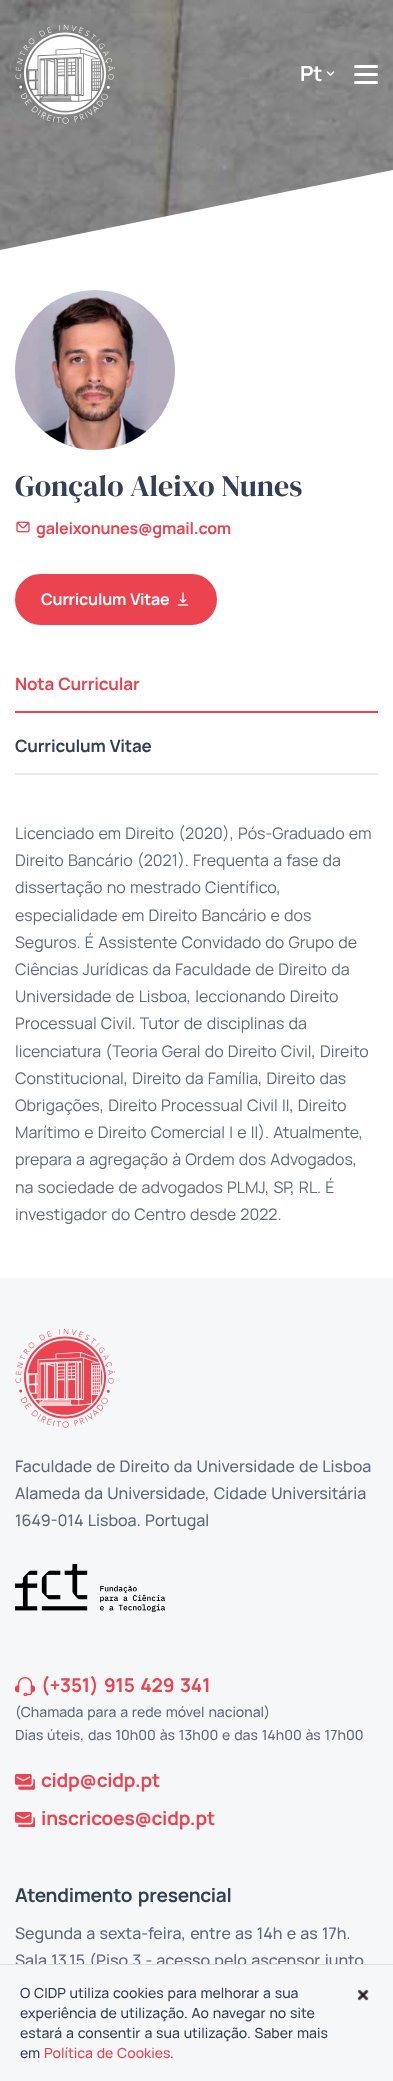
<?xml version="1.0" encoding="UTF-8"?>
<svg xmlns="http://www.w3.org/2000/svg" xmlns:xlink="http://www.w3.org/1999/xlink" width="393" height="2081">
  <rect width="100%" height="100%" fill="#ffffff" />
  <image x="0" y="0" width="393" height="250" xlink:href="image1.png" />
  <path d="M 393 170 v 80 h -393 z" fill="#ffffff" />
  <image x="15" y="24" width="100" height="100" xlink:href="image2.png" />
  <image x="326" y="71" width="9" height="5" xlink:href="image3.png" />
  <rect x="354" y="65" width="24" height="3" rx="1.5" fill="#ffffff" />
  <rect x="354" y="73" width="24" height="3" rx="1.5" fill="#ffffff" />
  <rect x="354" y="81" width="24" height="3" rx="1.5" fill="#ffffff" />
  <image x="15" y="290" width="160" height="160" xlink:href="image4.png" />
  <image x="16" y="521" width="14" height="12" xlink:href="image5.png" />
  <rect x="16" y="575" width="200" height="49" rx="24.5" fill="#eb434f" stroke="#eb434f" stroke-width="2" />
  <image x="177" y="592" width="12" height="14" xlink:href="image6.png" />
  <rect x="15" y="711" width="363" height="2" fill="#eb434f" />
  <rect x="15" y="773" width="363" height="2" fill="#e8ebf1" />
  <rect y="1278" width="393" height="686" fill="#f6f7f9" />
  <image x="15" y="1328" width="100" height="100" xlink:href="image7.png" />
  <image x="15" y="1564" width="150" height="48" xlink:href="image8.png" />
  <image x="15" y="1677" width="20" height="19" xlink:href="image9.png" />
  <image x="15" y="1774" width="20" height="16" xlink:href="image10.png" />
  <image x="15" y="1812" width="20" height="15" xlink:href="image11.png" />
  <text x="300" y="81" style="font-family: Manrope; font-size: 21px; font-weight: bold; letter-spacing: -0.2px; fill: #ffffff">Pt</text>
  <text x="15" y="496" style="font-family: DM Serif Display; font-size: 30px; fill: #343f52">Gonçalo Aleixo Nunes</text>
  <text x="36" y="534" style="font-family: Manrope; font-size: 16px; font-weight: bold; letter-spacing: -0.2px; fill: #eb434f">galeixonunes@gmail.com</text>
  <text x="41" y="605" word-spacing="1" style="font-family: Manrope; font-size: 16px; font-weight: bold; letter-spacing: -0.2px; fill: #ffffff">Curriculum Vitae</text>
  <text x="15" y="690" word-spacing="1" style="font-family: Manrope; font-size: 17px; font-weight: bold; letter-spacing: -0.2px; fill: #eb434f">Nota Curricular</text>
  <text x="15" y="752" word-spacing="1" style="font-family: Manrope; font-size: 17px; font-weight: bold; letter-spacing: -0.2px; fill: #343f52">Curriculum Vitae</text>
  <text x="15" y="839" word-spacing="1" style="font-family: Manrope; font-size: 16px; fill: #60697b">Licenciado em Direito (2020), Pós-Graduado em</text>
  <text x="15" y="866" word-spacing="1" style="font-family: Manrope; font-size: 16px; fill: #60697b">Direito Bancário (2021). Frequenta a fase da</text>
  <text x="15" y="893" word-spacing="1" style="font-family: Manrope; font-size: 16px; fill: #60697b">dissertação no mestrado Científico,</text>
  <text x="15" y="921" word-spacing="1" style="font-family: Manrope; font-size: 16px; fill: #60697b">especialidade em Direito Bancário e dos</text>
  <text x="15" y="948" word-spacing="1" style="font-family: Manrope; font-size: 16px; fill: #60697b">Seguros. É Assistente Convidado do Grupo de</text>
  <text x="15" y="975" word-spacing="1" style="font-family: Manrope; font-size: 16px; fill: #60697b">Ciências Jurídicas da Faculdade de Direito da</text>
  <text x="15" y="1002" word-spacing="1" style="font-family: Manrope; font-size: 16px; fill: #60697b">Universidade de Lisboa, leccionando Direito</text>
  <text x="15" y="1029" word-spacing="1" style="font-family: Manrope; font-size: 16px; fill: #60697b">Processual Civil. Tutor de disciplinas da</text>
  <text x="15" y="1057" word-spacing="1" style="font-family: Manrope; font-size: 16px; fill: #60697b">licenciatura (Teoria Geral do Direito Civil, Direito</text>
  <text x="15" y="1084" word-spacing="1" style="font-family: Manrope; font-size: 16px; fill: #60697b">Constitucional, Direito da Família, Direito das</text>
  <text x="15" y="1111" word-spacing="1" style="font-family: Manrope; font-size: 16px; fill: #60697b">Obrigações, Direito Processual Civil II, Direito</text>
  <text x="15" y="1138" word-spacing="1" style="font-family: Manrope; font-size: 16px; fill: #60697b">Marítimo e Direito Comercial I e II). Atualmente,</text>
  <text x="15" y="1165" word-spacing="1" style="font-family: Manrope; font-size: 16px; fill: #60697b">prepara a agregação à Ordem dos Advogados,</text>
  <text x="15" y="1193" word-spacing="1" style="font-family: Manrope; font-size: 16px; fill: #60697b">na sociedade de advogados PLMJ, SP, RL. É</text>
  <text x="15" y="1220" word-spacing="1" style="font-family: Manrope; font-size: 16px; fill: #60697b">investigador do Centro desde 2022.</text>
  <text x="15" y="1472" word-spacing="1" style="font-family: Manrope; font-size: 16px; font-weight: 500; fill: #60697b">Faculdade de Direito da Universidade de Lisboa</text>
  <text x="15" y="1499" word-spacing="1" style="font-family: Manrope; font-size: 16px; font-weight: 500; fill: #60697b">Alameda da Universidade, Cidade Universitária</text>
  <text x="15" y="1526" word-spacing="1" style="font-family: Manrope; font-size: 16px; font-weight: 500; fill: #60697b">1649-014 Lisboa. Portugal</text>
  <text x="41" y="1692" word-spacing="2" style="font-family: Manrope; font-size: 19px; font-weight: bold; letter-spacing: -0.2px; fill: #eb434f">(+351) 915 429 341</text>
  <text x="15" y="1717" word-spacing="1" style="font-family: Manrope; font-size: 14px; font-weight: 500; fill: #60697b">(Chamada para a rede móvel nacional)</text>
  <text x="15" y="1740" word-spacing="1" style="font-family: Manrope; font-size: 14px; font-weight: 500; fill: #60697b">Dias úteis, das 10h00 às 13h00 e das 14h00 às 17h00</text>
  <text x="41" y="1787" style="font-family: Manrope; font-size: 19px; font-weight: bold; letter-spacing: -0.2px; fill: #eb434f">cidp@cidp.pt</text>
  <text x="41" y="1825" style="font-family: Manrope; font-size: 19px; font-weight: bold; letter-spacing: -0.2px; fill: #eb434f">inscricoes@cidp.pt</text>
  <text x="15" y="1902" word-spacing="2" style="font-family: Manrope; font-size: 19px; font-weight: bold; letter-spacing: -0.2px; fill: #343f52">Atendimento presencial</text>
  <text x="15" y="1939" word-spacing="1" style="font-family: Manrope; font-size: 16px; font-weight: 500; fill: #60697b">Segunda a sexta-feira, entre as 14h e as 17h.</text>
  <text x="15" y="1966" word-spacing="1" style="font-family: Manrope; font-size: 16px; font-weight: 500; fill: #60697b">Sala 13.15 (Piso 3 - acesso pelo ascensor junto</text>
  <rect y="1965" width="393" height="116" fill="#f6f7f9" />
  <rect y="1964" width="393" height="1" fill="#dddee0" />
  <text x="20" y="1998" word-spacing="1" style="font-family: Manrope; font-size: 14px; font-weight: 500; fill: #343f52">O CIDP utiliza cookies para melhorar a sua</text>
  <text x="20" y="2018" word-spacing="1" style="font-family: Manrope; font-size: 14px; font-weight: 500; fill: #343f52">experiência de utilização. Ao navegar no site</text>
  <text x="20" y="2038" word-spacing="1" style="font-family: Manrope; font-size: 14px; font-weight: 500; fill: #343f52">estará a consentir a sua utilização. Saber mais</text>
  <text x="20" y="2058" style="font-family: Manrope; font-size: 14px; font-weight: 500; fill: #343f52">em</text>
  <text x="44" y="2058" word-spacing="1" style="font-family: Manrope; font-size: 14px; font-weight: 500; fill: #eb434f">Política de Cookies</text>
  <text x="170" y="2058" style="font-family: Manrope; font-size: 14px; font-weight: 500; fill: #343f52">.</text>
  <image x="357" y="1989" width="12" height="12" xlink:href="image12.png" />
</svg>
